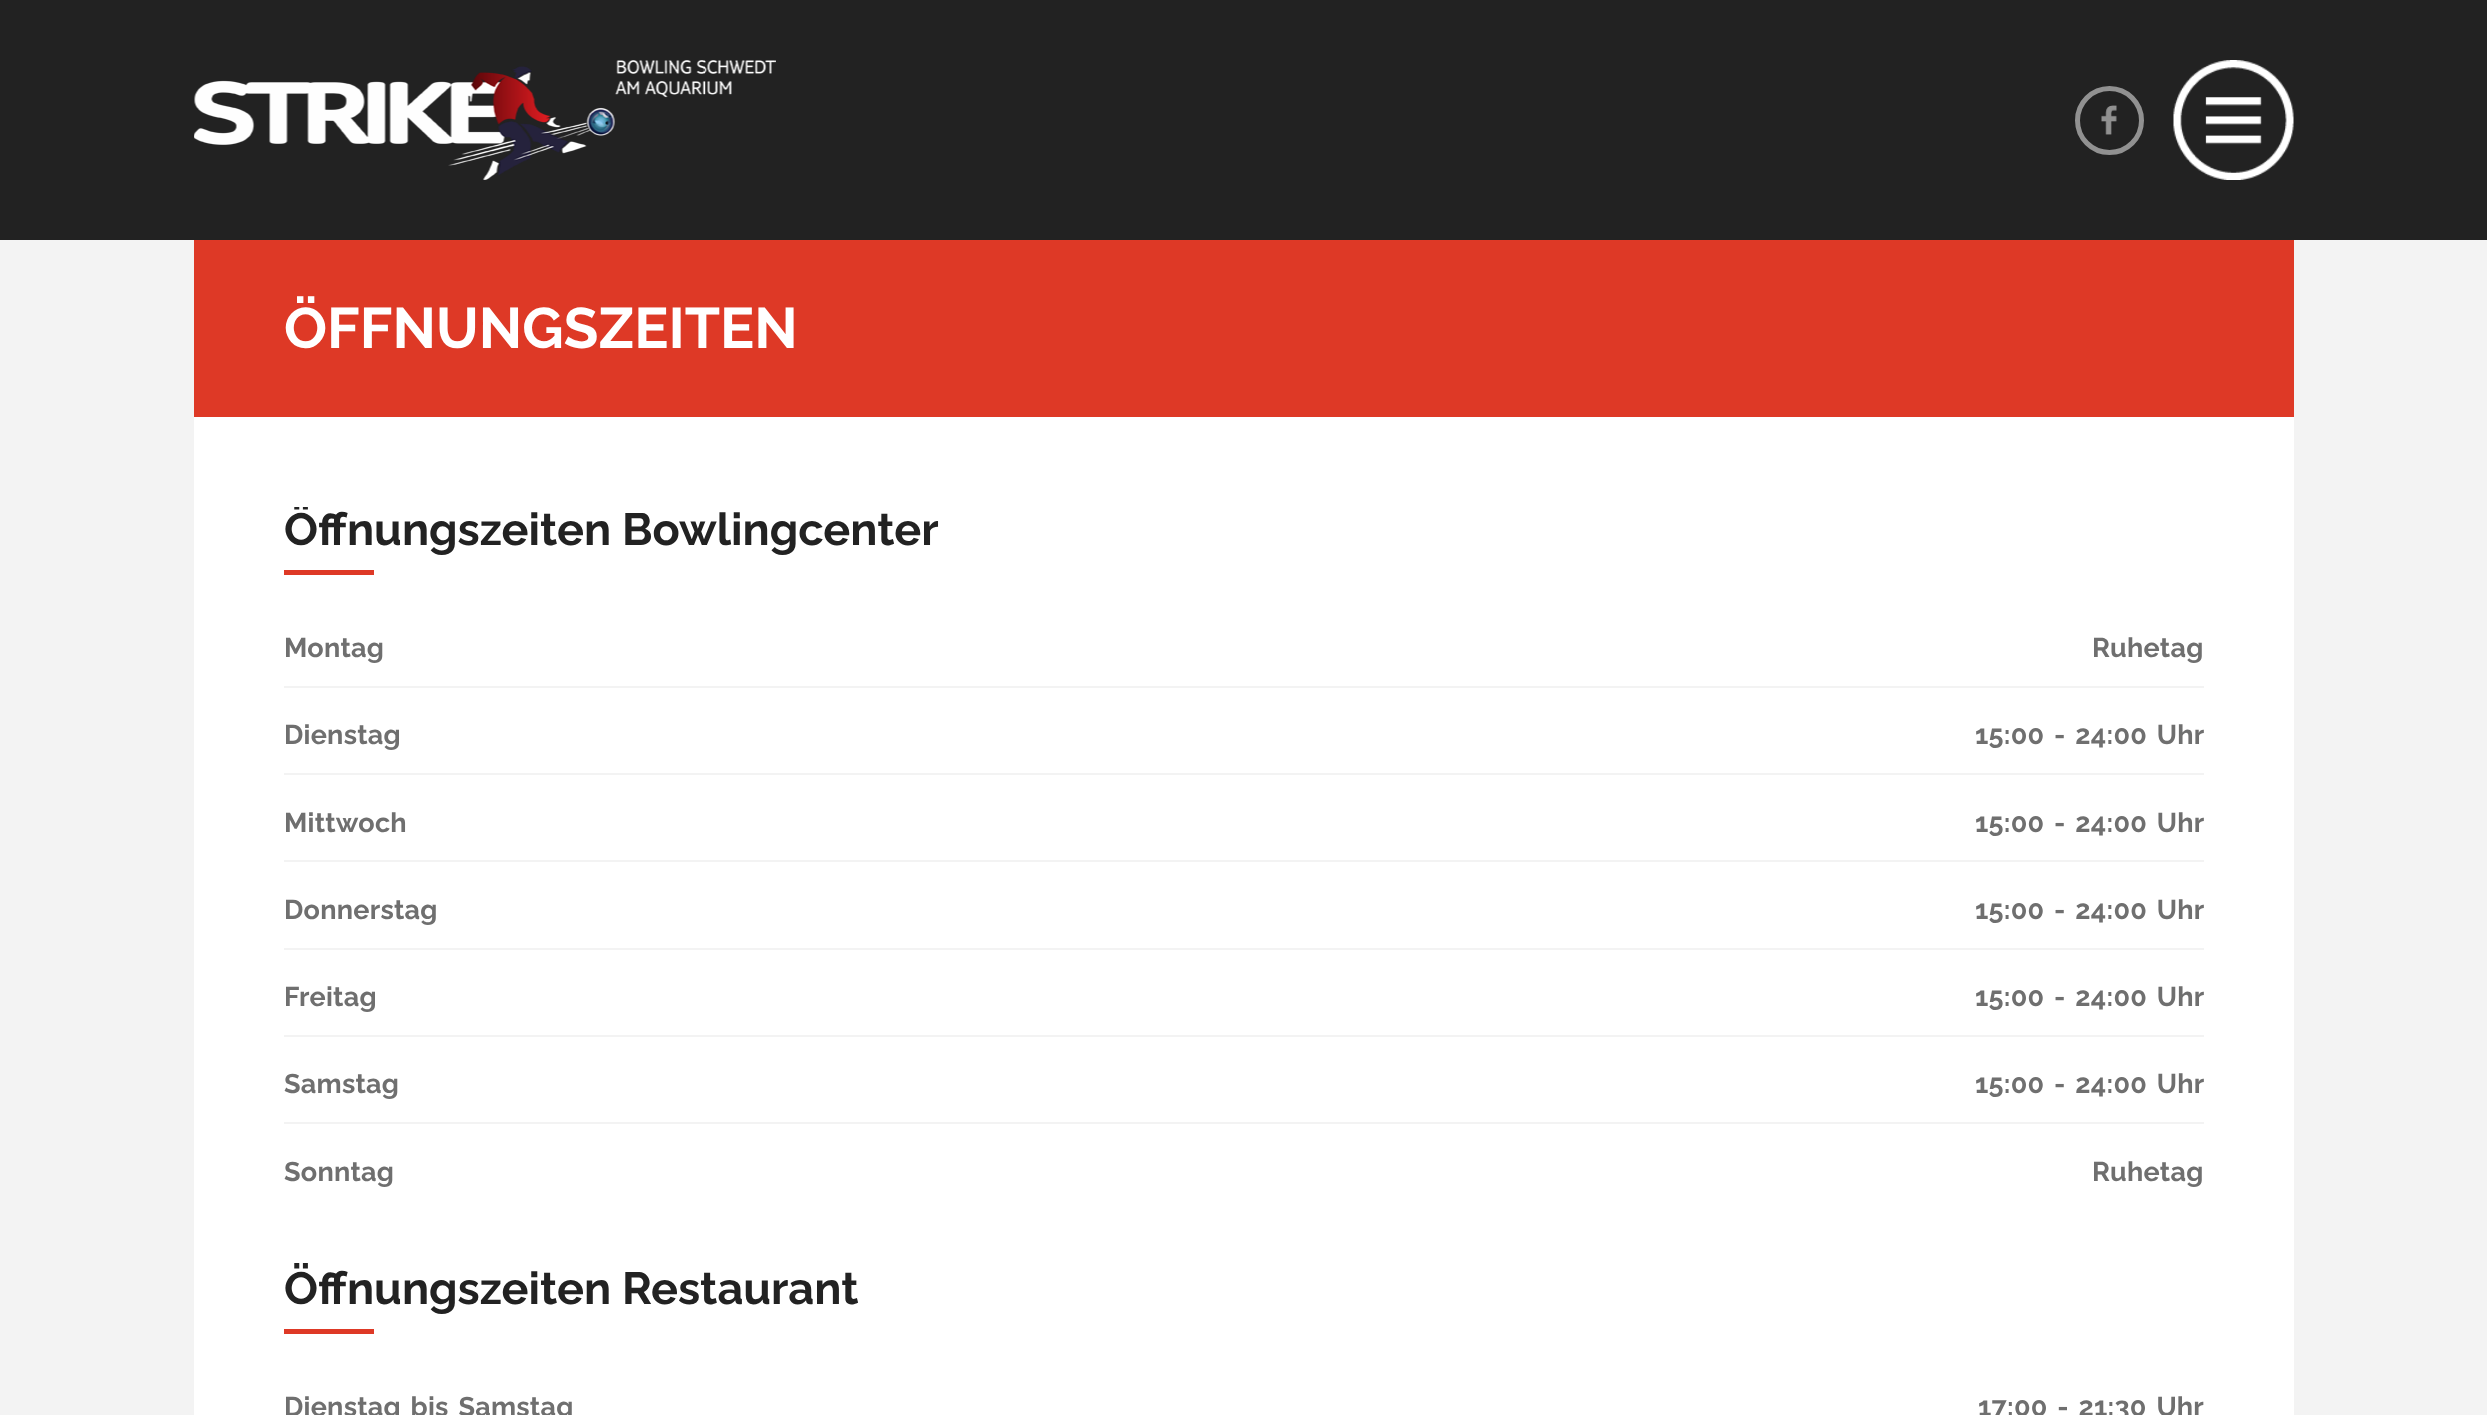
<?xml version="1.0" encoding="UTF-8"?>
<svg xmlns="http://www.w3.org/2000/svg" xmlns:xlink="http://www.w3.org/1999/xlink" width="2487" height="1415">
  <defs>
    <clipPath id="clip1"><rect x="284" y="507" width="1920" height="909" /></clipPath>
  </defs>
  <rect width="100%" height="100%" fill="#f3f3f3" />
  <rect width="2487" height="240" fill="#222222" />
  <image x="194" y="60" width="582" height="120" xlink:href="image1.png" />
  <circle cx="2109.5" cy="120.5" r="32" fill="none" stroke="#919191" stroke-width="5" />
  <image x="2101" y="105" width="16" height="30" xlink:href="image2.png" />
  <image x="2173" y="60" width="121" height="120" xlink:href="image3.png" />
  <rect x="194" y="417" width="2100" height="998" fill="#ffffff" />
  <rect x="194" y="240" width="2100" height="177" fill="#de3926" />
  <rect x="284" y="570" width="90" height="5" fill="#de3926" />
  <rect x="284" y="686" width="1920" height="2" fill="#f3f3f3" />
  <rect x="284" y="773" width="1920" height="2" fill="#f3f3f3" />
  <rect x="284" y="860" width="1920" height="2" fill="#f3f3f3" />
  <rect x="284" y="948" width="1920" height="2" fill="#f3f3f3" />
  <rect x="284" y="1035" width="1920" height="2" fill="#f3f3f3" />
  <rect x="284" y="1122" width="1920" height="2" fill="#f3f3f3" />
  <rect x="284" y="1329" width="90" height="5" fill="#de3926" />
  <text x="284" y="348" style="font-family: Raleway; font-size: 57px; font-weight: bold; fill: #ffffff">ÖFFNUNGSZEITEN</text>
  <g clip-path="url(#clip1)">
    <text x="284" y="545" style="font-family: Raleway; font-size: 45px; font-weight: bold; fill: #222222">Öffnungszeiten Bowlingcenter</text>
  </g>
  <text x="284" y="657" style="font-family: Raleway; font-size: 27px; font-weight: bold; letter-spacing: 0.25px; fill: #6f6f6f">Montag</text>
  <text x="2092" y="657" style="font-family: Raleway; font-size: 27px; font-weight: bold; letter-spacing: 0.25px; fill: #6f6f6f">Ruhetag</text>
  <text x="284" y="744" style="font-family: Raleway; font-size: 27px; font-weight: bold; letter-spacing: 0.25px; fill: #6f6f6f">Dienstag</text>
  <text x="1975" y="744" word-spacing="3" style="font-family: Raleway; font-size: 27px; font-weight: bold; letter-spacing: 0.25px; fill: #6f6f6f">15:00 - 24:00 Uhr</text>
  <text x="284" y="832" style="font-family: Raleway; font-size: 27px; font-weight: bold; letter-spacing: 0.25px; fill: #6f6f6f">Mittwoch</text>
  <text x="1975" y="832" word-spacing="3" style="font-family: Raleway; font-size: 27px; font-weight: bold; letter-spacing: 0.25px; fill: #6f6f6f">15:00 - 24:00 Uhr</text>
  <text x="284" y="919" style="font-family: Raleway; font-size: 27px; font-weight: bold; letter-spacing: 0.25px; fill: #6f6f6f">Donnerstag</text>
  <text x="1975" y="919" word-spacing="3" style="font-family: Raleway; font-size: 27px; font-weight: bold; letter-spacing: 0.25px; fill: #6f6f6f">15:00 - 24:00 Uhr</text>
  <text x="284" y="1006" style="font-family: Raleway; font-size: 27px; font-weight: bold; letter-spacing: 0.25px; fill: #6f6f6f">Freitag</text>
  <text x="1975" y="1006" word-spacing="3" style="font-family: Raleway; font-size: 27px; font-weight: bold; letter-spacing: 0.25px; fill: #6f6f6f">15:00 - 24:00 Uhr</text>
  <text x="284" y="1093" style="font-family: Raleway; font-size: 27px; font-weight: bold; letter-spacing: 0.25px; fill: #6f6f6f">Samstag</text>
  <text x="1975" y="1093" word-spacing="3" style="font-family: Raleway; font-size: 27px; font-weight: bold; letter-spacing: 0.25px; fill: #6f6f6f">15:00 - 24:00 Uhr</text>
  <text x="284" y="1181" style="font-family: Raleway; font-size: 27px; font-weight: bold; letter-spacing: 0.25px; fill: #6f6f6f">Sonntag</text>
  <text x="2092" y="1181" style="font-family: Raleway; font-size: 27px; font-weight: bold; letter-spacing: 0.25px; fill: #6f6f6f">Ruhetag</text>
  <text x="284" y="1304" style="font-family: Raleway; font-size: 45px; font-weight: bold; fill: #222222">Öffnungszeiten Restaurant</text>
  <text x="284" y="1416" word-spacing="3" style="font-family: Raleway; font-size: 27px; font-weight: bold; letter-spacing: 0.25px; fill: #6f6f6f">Dienstag bis Samstag</text>
  <text x="1978" y="1416" word-spacing="3" style="font-family: Raleway; font-size: 27px; font-weight: bold; letter-spacing: 0.25px; fill: #6f6f6f">17:00 - 21:30 Uhr</text>
</svg>
